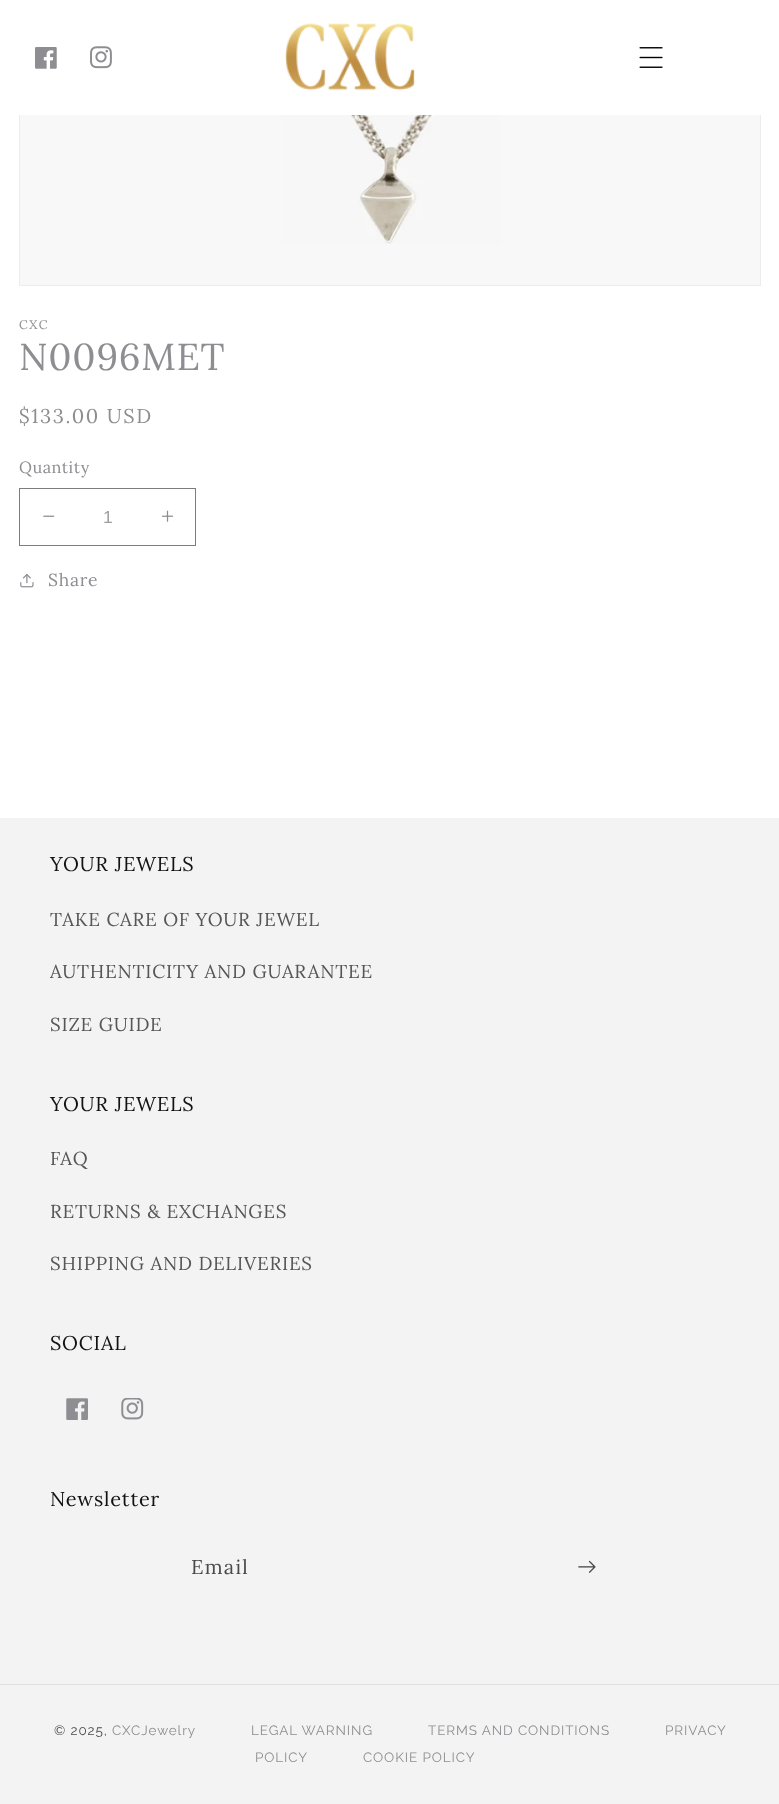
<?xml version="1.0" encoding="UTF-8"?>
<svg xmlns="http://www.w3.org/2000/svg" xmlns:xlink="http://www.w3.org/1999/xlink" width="779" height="1804">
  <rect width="100%" height="100%" fill="#ffffff" />
  <rect x="20" y="115" width="740" height="170" fill="#f8f8f8" />
  <rect x="19.5" y="-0.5" width="741" height="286" fill="none" stroke="#ececec" />
  <rect x="19" width="742" height="115" fill="#ffffff" />
  <image x="35" y="47" width="22" height="22" xlink:href="image1.png" />
  <image x="90" y="46" width="22" height="23" xlink:href="image2.png" />
  <image x="285" y="23" width="130" height="68" xlink:href="image3.png" />
  <image x="639" y="47" width="24" height="21" xlink:href="image4.png" />
  <image x="281" y="115" width="220" height="129" xlink:href="image5.png" />
  <image x="43" y="515" width="12" height="2" xlink:href="image6.png" />
  <image x="161" y="510" width="13" height="12" xlink:href="image7.png" />
  <rect x="19.5" y="488.5" width="176" height="57" fill="none" stroke="#7d7d7d" />
  <image x="20" y="573" width="14" height="15" xlink:href="image8.png" />
  <rect y="818" width="779" height="986" fill="#f3f3f3" />
  <image x="66" y="1398" width="22" height="22" xlink:href="image9.png" />
  <image x="121" y="1398" width="23" height="22" xlink:href="image10.png" />
  <image x="578" y="1560" width="18" height="13" xlink:href="image11.png" />
  <rect y="1684" width="779" height="1" fill="#e1e1e1" />
  <text x="19" y="329" style="font-family: Lora; font-size: 12.5px; letter-spacing: 1.6px; fill: #8e8e92">CXC</text>
  <text x="19" y="370" style="font-family: Lora; font-size: 37.5px; letter-spacing: 0.75px; fill: #8e8e92">N0096MET</text>
  <text x="19" y="423" style="font-family: Lora; font-size: 20px; letter-spacing: 1.6px; fill: #8e8e92">$133.00 USD</text>
  <text x="19" y="473" style="font-family: Lora; font-size: 16.25px; letter-spacing: 0.5px; fill: #8e8e92">Quantity</text>
  <text x="103" y="523" style="font-family: Liberation Sans; font-size: 17.5px; fill: #9f9fa2">1</text>
  <text x="48" y="586" style="font-family: Lora; font-size: 17.5px; letter-spacing: 0.75px; fill: #8e8e92">Share</text>
  <text x="50" y="871" style="font-family: Lora; font-size: 20px; letter-spacing: 0.75px; fill: #121212">YOUR JEWELS</text>
  <text x="50" y="926" style="font-family: Lora; font-size: 18.75px; letter-spacing: 0.75px; fill: #565656">TAKE CARE OF YOUR JEWEL</text>
  <text x="50" y="978" style="font-family: Lora; font-size: 18.75px; letter-spacing: 0.75px; fill: #565656">AUTHENTICITY AND GUARANTEE</text>
  <text x="50" y="1031" style="font-family: Lora; font-size: 18.75px; letter-spacing: 0.75px; fill: #565656">SIZE GUIDE</text>
  <text x="50" y="1111" style="font-family: Lora; font-size: 20px; letter-spacing: 0.75px; fill: #121212">YOUR JEWELS</text>
  <text x="50" y="1165" style="font-family: Lora; font-size: 18.75px; letter-spacing: 0.75px; fill: #565656">FAQ</text>
  <text x="50" y="1218" style="font-family: Lora; font-size: 18.75px; letter-spacing: 0.75px; fill: #565656">RETURNS &amp; EXCHANGES</text>
  <text x="50" y="1270" style="font-family: Lora; font-size: 18.75px; letter-spacing: 0.75px; fill: #565656">SHIPPING AND DELIVERIES</text>
  <text x="50" y="1350" style="font-family: Lora; font-size: 20px; letter-spacing: 0.75px; fill: #121212">SOCIAL</text>
  <text x="50" y="1506" style="font-family: Lora; font-size: 20px; letter-spacing: 0.75px; fill: #121212">Newsletter</text>
  <text x="191" y="1574" style="font-family: Lora; font-size: 20px; letter-spacing: 1.25px; fill: #4a4a4a">Email</text>
  <text x="54" y="1735" style="font-family: Raleway; font-size: 13.5px; letter-spacing: 0.9px; fill: #4a4a4a">© 2025,</text>
  <text x="112" y="1735" style="font-family: Raleway; font-size: 13.5px; letter-spacing: 0.9px; fill: #8e8e92">CXCJewelry</text>
  <text x="251" y="1735" style="font-family: Raleway; font-size: 13.5px; letter-spacing: 0.9px; fill: #8e8e92">LEGAL WARNING</text>
  <text x="428" y="1735" style="font-family: Raleway; font-size: 13.5px; letter-spacing: 0.9px; fill: #8e8e92">TERMS AND CONDITIONS</text>
  <text x="665" y="1735" style="font-family: Raleway; font-size: 13.5px; letter-spacing: 0.9px; fill: #8e8e92">PRIVACY</text>
  <text x="255" y="1762" style="font-family: Raleway; font-size: 13.5px; letter-spacing: 0.9px; fill: #8e8e92">POLICY</text>
  <text x="363" y="1762" style="font-family: Raleway; font-size: 13.5px; letter-spacing: 0.9px; fill: #8e8e92">COOKIE POLICY</text>
</svg>
